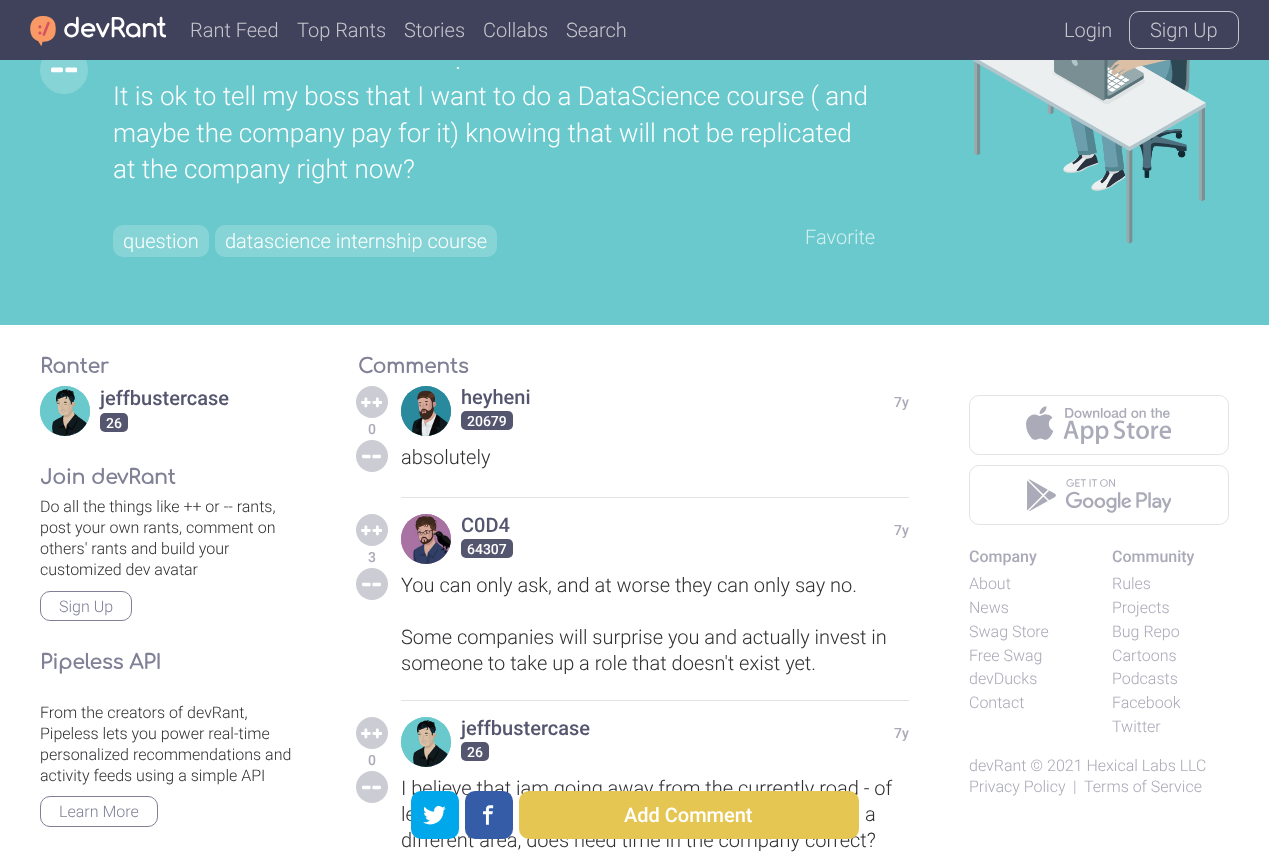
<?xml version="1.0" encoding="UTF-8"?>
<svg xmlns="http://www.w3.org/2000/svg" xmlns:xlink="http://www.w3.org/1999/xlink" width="1269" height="859">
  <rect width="100%" height="100%" fill="#ffffff" />
  <rect y="60" width="1269" height="265" fill="#69c9cd" />
  <circle cx="64" cy="70" r="24" fill="#87d4d7" />
  <rect width="1269" height="60" fill="#40415a" />
  <image x="30" y="16" width="26" height="30" xlink:href="image1.png" />
  <image x="38" y="21" width="12" height="15" xlink:href="image2.png" />
  <image x="64" y="16" width="102" height="22" xlink:href="image3.png" />
  <rect x="1129.5" y="11.5" width="109" height="37" rx="9.5" fill="none" stroke="#c6c6ce" />
  <image x="51" y="67" width="26" height="6" xlink:href="image4.png" />
  <rect x="113" y="225" width="96" height="32" rx="10" fill="#87d4d7" />
  <rect x="215" y="225" width="282" height="32" rx="10" fill="#87d4d7" />
  <image x="973" y="60" width="233" height="184" xlink:href="image5.png" />
  <circle cx="65" cy="411" r="25" fill="#69c9cd" />
  <image x="40" y="386" width="50" height="50" xlink:href="image6.png" />
  <rect x="100" y="413" width="28" height="19" rx="5" fill="#54556e" />
  <rect x="40.5" y="591.5" width="91" height="29" rx="9.5" fill="none" stroke="#808196" />
  <rect x="40.5" y="796.5" width="117" height="30" rx="9.5" fill="none" stroke="#808196" />
  <circle cx="372" cy="402" r="16" fill="#ccccd4" />
  <image x="361" y="397" width="21" height="11" xlink:href="image7.png" />
  <circle cx="372" cy="456" r="16" fill="#ccccd4" />
  <image x="362" y="454" width="19" height="5" xlink:href="image8.png" />
  <rect x="401" y="497" width="508" height="1" fill="#e3e3e3" />
  <circle cx="426" cy="411" r="25" fill="#2a8b9d" />
  <image x="401" y="386" width="50" height="50" xlink:href="image9.png" />
  <rect x="461" y="411" width="52" height="19" rx="5" fill="#54556e" />
  <circle cx="372" cy="530" r="16" fill="#ccccd4" />
  <image x="361" y="525" width="21" height="11" xlink:href="image7.png" />
  <circle cx="372" cy="584" r="16" fill="#ccccd4" />
  <image x="362" y="582" width="19" height="5" xlink:href="image10.png" />
  <rect x="401" y="700" width="508" height="1" fill="#e3e3e3" />
  <circle cx="426" cy="539" r="25" fill="#a973a2" />
  <image x="401" y="514" width="50" height="50" xlink:href="image11.png" />
  <rect x="461" y="539" width="52" height="19" rx="5" fill="#54556e" />
  <circle cx="372" cy="733" r="16" fill="#ccccd4" />
  <image x="361" y="728" width="21" height="11" xlink:href="image7.png" />
  <circle cx="372" cy="787" r="16" fill="#ccccd4" />
  <image x="362" y="785" width="19" height="5" xlink:href="image10.png" />
  <circle cx="426" cy="742" r="25" fill="#69c9cd" />
  <image x="401" y="717" width="50" height="50" xlink:href="image6.png" />
  <rect x="461" y="742" width="28" height="19" rx="5" fill="#54556e" />
  <rect x="969.5" y="395.5" width="259" height="59" rx="9.5" fill="none" stroke="#e3e3e3" />
  <image x="1026" y="406" width="145" height="38" xlink:href="image12.png" />
  <rect x="969.5" y="465.5" width="259" height="59" rx="9.5" fill="none" stroke="#e3e3e3" />
  <image x="1027" y="479" width="144" height="34" xlink:href="image13.png" />
  <text x="190" y="37" style="font-family: Roboto; font-size: 20px; font-weight: 300; fill: #c6c6ce">Rant Feed</text>
  <text x="297" y="37" style="font-family: Roboto; font-size: 20px; font-weight: 300; fill: #c6c6ce">Top Rants</text>
  <text x="404" y="37" style="font-family: Roboto; font-size: 20px; font-weight: 300; fill: #c6c6ce">Stories</text>
  <text x="483" y="37" style="font-family: Roboto; font-size: 20px; font-weight: 300; fill: #c6c6ce">Collabs</text>
  <text x="566" y="37" style="font-family: Roboto; font-size: 20px; font-weight: 300; fill: #c6c6ce">Search</text>
  <text x="1064" y="37" style="font-family: Roboto; font-size: 20px; font-weight: 300; fill: #c6c6ce">Login</text>
  <text x="1150" y="37" style="font-family: Roboto; font-size: 20px; font-weight: 300; fill: #c6c6ce">Sign Up</text>
  <text x="455" y="69" style="font-family: Roboto; font-size: 26px; font-weight: 300; fill: #ffffff">.</text>
  <text x="113" y="105" style="font-family: Roboto; font-size: 26px; font-weight: 300; fill: #ffffff">It is ok to tell my boss that I want to do a DataScience course ( and</text>
  <text x="113" y="142" style="font-family: Roboto; font-size: 26px; font-weight: 300; fill: #ffffff">maybe the company pay for it) knowing that will not be replicated</text>
  <text x="113" y="178" style="font-family: Roboto; font-size: 26px; font-weight: 300; fill: #ffffff">at the company right now?</text>
  <text x="123" y="248" style="font-family: Roboto; font-size: 20px; font-weight: 300; fill: #ffffff">question</text>
  <text x="225" y="248" style="font-family: Roboto; font-size: 20px; font-weight: 300; fill: #ffffff">datascience internship course</text>
  <text x="805" y="244" style="font-family: Roboto; font-size: 20px; font-weight: 300; fill: #d2eff0">Favorite</text>
  <text x="40" y="373" style="font-family: Comfortaa; font-size: 20px; font-weight: bold; fill: #808196">Ranter</text>
  <text x="100" y="405" style="font-family: Roboto; font-size: 20px; font-weight: 500; fill: #54556e">jeffbustercase</text>
  <text x="106" y="428" style="font-family: Roboto; font-size: 14px; font-weight: 500; fill: #ffffff">26</text>
  <text x="40" y="484" style="font-family: Comfortaa; font-size: 20px; font-weight: bold; fill: #808196">Join devRant</text>
  <text x="40" y="512" style="font-family: Roboto; font-size: 16px; font-weight: 300; fill: #2f2f32">Do all the things like ++ or -- rants,</text>
  <text x="40" y="533" style="font-family: Roboto; font-size: 16px; font-weight: 300; fill: #2f2f32">post your own rants, comment on</text>
  <text x="40" y="554" style="font-family: Roboto; font-size: 16px; font-weight: 300; fill: #2f2f32">others' rants and build your</text>
  <text x="40" y="575" style="font-family: Roboto; font-size: 16px; font-weight: 300; fill: #2f2f32">customized dev avatar</text>
  <text x="59" y="612" style="font-family: Roboto; font-size: 16px; font-weight: 300; fill: #808196">Sign Up</text>
  <text x="40" y="669" style="font-family: Comfortaa; font-size: 20px; font-weight: bold; fill: #808196">Pipeless API</text>
  <text x="40" y="718" style="font-family: Roboto; font-size: 16px; font-weight: 300; fill: #2f2f32">From the creators of devRant,</text>
  <text x="40" y="739" style="font-family: Roboto; font-size: 16px; font-weight: 300; fill: #2f2f32">Pipeless lets you power real-time</text>
  <text x="40" y="760" style="font-family: Roboto; font-size: 16px; font-weight: 300; fill: #2f2f32">personalized recommendations and</text>
  <text x="40" y="781" style="font-family: Roboto; font-size: 16px; font-weight: 300; fill: #2f2f32">activity feeds using a simple API</text>
  <text x="59" y="817" style="font-family: Roboto; font-size: 16px; font-weight: 300; fill: #808196">Learn More</text>
  <text x="358" y="373" style="font-family: Comfortaa; font-size: 20px; font-weight: bold; fill: #808196">Comments</text>
  <text x="368" y="434" style="font-family: Roboto; font-size: 14px; font-weight: 500; fill: #aaaab8">0</text>
  <text x="461" y="404" style="font-family: Roboto; font-size: 20px; font-weight: 500; fill: #54556e">heyheni</text>
  <text x="467" y="426" style="font-family: Roboto; font-size: 14px; font-weight: 500; fill: #ffffff">20679</text>
  <text x="894" y="407" style="font-family: Roboto; font-size: 14px; font-weight: 500; fill: #aaaab8">7y</text>
  <text x="401" y="464" style="font-family: Roboto; font-size: 20px; font-weight: 300; fill: #2f2f32">absolutely</text>
  <text x="368" y="562" style="font-family: Roboto; font-size: 14px; font-weight: 500; fill: #aaaab8">3</text>
  <text x="461" y="532" style="font-family: Roboto; font-size: 20px; font-weight: 500; fill: #54556e">C0D4</text>
  <text x="467" y="554" style="font-family: Roboto; font-size: 14px; font-weight: 500; fill: #ffffff">64307</text>
  <text x="894" y="535" style="font-family: Roboto; font-size: 14px; font-weight: 500; fill: #aaaab8">7y</text>
  <text x="401" y="592" style="font-family: Roboto; font-size: 20px; font-weight: 300; fill: #2f2f32">You can only ask, and at worse they can only say no.</text>
  <text x="401" y="644" style="font-family: Roboto; font-size: 20px; font-weight: 300; fill: #2f2f32">Some companies will surprise you and actually invest in</text>
  <text x="401" y="670" style="font-family: Roboto; font-size: 20px; font-weight: 300; fill: #2f2f32">someone to take up a role that doesn't exist yet.</text>
  <text x="368" y="765" style="font-family: Roboto; font-size: 14px; font-weight: 500; fill: #aaaab8">0</text>
  <text x="461" y="735" style="font-family: Roboto; font-size: 20px; font-weight: 500; fill: #54556e">jeffbustercase</text>
  <text x="467" y="757" style="font-family: Roboto; font-size: 14px; font-weight: 500; fill: #ffffff">26</text>
  <text x="894" y="738" style="font-family: Roboto; font-size: 14px; font-weight: 500; fill: #aaaab8">7y</text>
  <text x="401" y="795" style="font-family: Roboto; font-size: 20px; font-weight: 300; fill: #2f2f32">I believe that iam going away from the currently road - of</text>
  <text x="401" y="821" style="font-family: Roboto; font-size: 20px; font-weight: 300; fill: #2f2f32">le</text>
  <text x="865" y="821" style="font-family: Roboto; font-size: 20px; font-weight: 300; fill: #2f2f32">a</text>
  <text x="401" y="847" style="font-family: Roboto; font-size: 20px; font-weight: 300; fill: #2f2f32">different area, does need time in the company correct?</text>
  <text x="969" y="562" style="font-family: Roboto; font-size: 16px; font-weight: 500; fill: #aaaab8">Company</text>
  <text x="969" y="589" style="font-family: Roboto; font-size: 16px; font-weight: 300; fill: #aaaab8">About</text>
  <text x="969" y="613" style="font-family: Roboto; font-size: 16px; font-weight: 300; fill: #aaaab8">News</text>
  <text x="969" y="637" style="font-family: Roboto; font-size: 16px; font-weight: 300; fill: #aaaab8">Swag Store</text>
  <text x="969" y="661" style="font-family: Roboto; font-size: 16px; font-weight: 300; fill: #aaaab8">Free Swag</text>
  <text x="969" y="684" style="font-family: Roboto; font-size: 16px; font-weight: 300; fill: #aaaab8">devDucks</text>
  <text x="969" y="708" style="font-family: Roboto; font-size: 16px; font-weight: 300; fill: #aaaab8">Contact</text>
  <text x="1112" y="562" style="font-family: Roboto; font-size: 16px; font-weight: 500; fill: #aaaab8">Community</text>
  <text x="1112" y="589" style="font-family: Roboto; font-size: 16px; font-weight: 300; fill: #aaaab8">Rules</text>
  <text x="1112" y="613" style="font-family: Roboto; font-size: 16px; font-weight: 300; fill: #aaaab8">Projects</text>
  <text x="1112" y="637" style="font-family: Roboto; font-size: 16px; font-weight: 300; fill: #aaaab8">Bug Repo</text>
  <text x="1112" y="661" style="font-family: Roboto; font-size: 16px; font-weight: 300; fill: #aaaab8">Cartoons</text>
  <text x="1112" y="684" style="font-family: Roboto; font-size: 16px; font-weight: 300; fill: #aaaab8">Podcasts</text>
  <text x="1112" y="708" style="font-family: Roboto; font-size: 16px; font-weight: 300; fill: #aaaab8">Facebook</text>
  <text x="1112" y="732" style="font-family: Roboto; font-size: 16px; font-weight: 300; fill: #aaaab8">Twitter</text>
  <text x="969" y="771" style="font-family: Roboto; font-size: 16px; font-weight: 300; fill: #aaaab8">devRant © 2021 Hexical Labs LLC</text>
  <text x="969" y="792" style="font-family: Roboto; font-size: 16px; font-weight: 300; fill: #aaaab8">Privacy Policy</text>
  <text x="1073" y="792" style="font-family: Roboto; font-size: 16px; font-weight: 300; fill: #aaaab8">|</text>
  <text x="1084" y="792" style="font-family: Roboto; font-size: 16px; font-weight: 300; fill: #aaaab8">Terms of Service</text>
  <rect x="411" y="791" width="48" height="48" rx="10" fill="#00a7ea" />
  <image x="423" y="806" width="23" height="19" xlink:href="image14.png" />
  <rect x="465" y="791" width="48" height="48" rx="10" fill="#355ca7" />
  <image x="483" y="805" width="11" height="20" xlink:href="image15.png" />
  <rect x="519" y="791" width="340" height="48" rx="10" fill="#e6c653" />
  <text x="624" y="822" style="font-family: Roboto; font-size: 20px; font-weight: 500; fill: #ffffff">Add Comment</text>
</svg>
